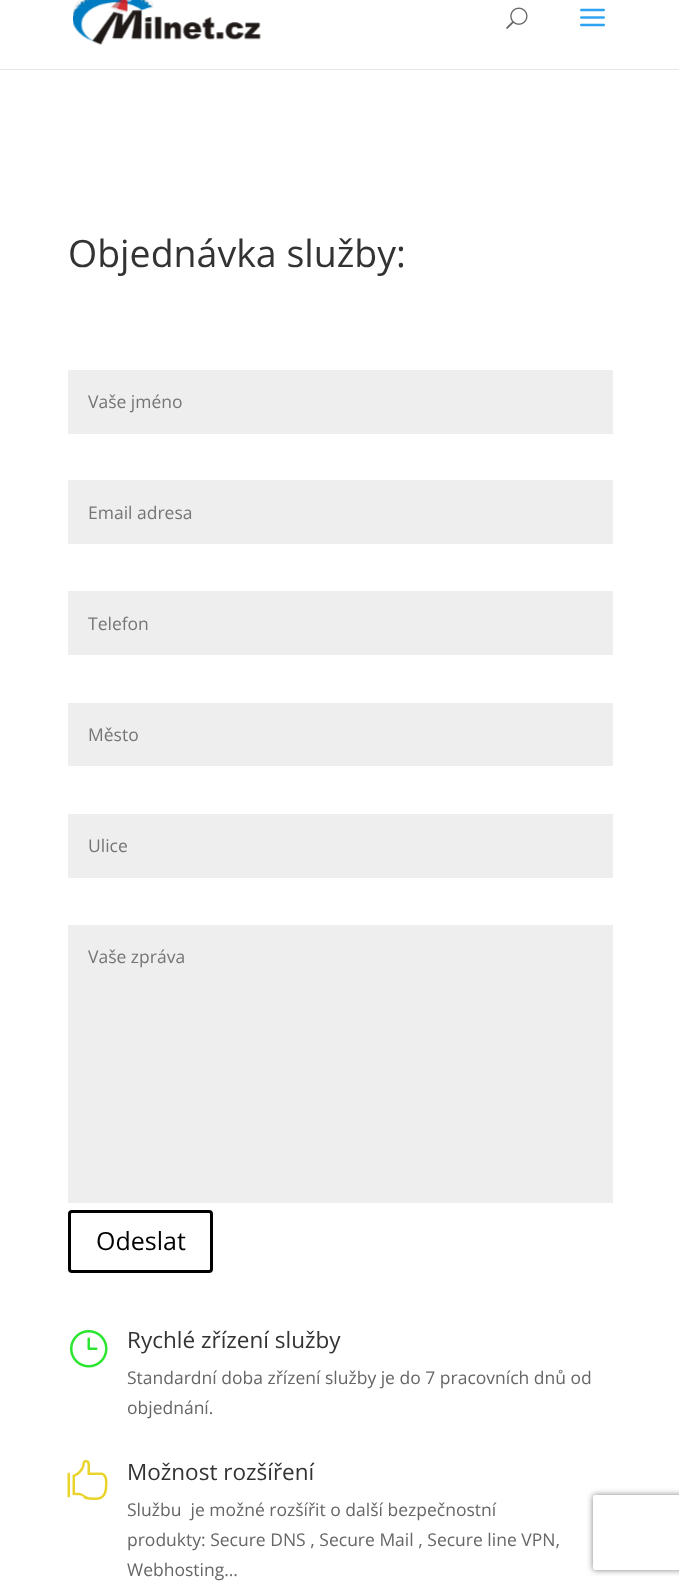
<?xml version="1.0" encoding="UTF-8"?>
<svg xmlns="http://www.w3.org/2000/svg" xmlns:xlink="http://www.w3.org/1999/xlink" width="679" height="1587">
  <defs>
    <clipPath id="clip1"><path d="M 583 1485 h 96 v 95 h -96 z m 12.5 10 h 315 c 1.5 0 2.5 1 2.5 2.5 v 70 c 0 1.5 -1 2.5 -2.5 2.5 h -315 c -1.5 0 -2.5 -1 -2.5 -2.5 v -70 c 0 -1.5 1 -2.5 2.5 -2.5 z" clip-rule="evenodd" /></clipPath>
  </defs>
  <rect width="100%" height="100%" fill="#ffffff" />
  <rect y="69" width="679" height="1" fill="#e6e6e6" />
  <image x="73" y="0" width="188" height="45" xlink:href="image1.png" />
  <image x="506" y="7" width="22" height="22" xlink:href="image2.png" />
  <image x="580" y="8" width="25" height="19" xlink:href="image3.png" />
  <rect x="68" y="370" width="545" height="64" fill="#eeeeee" />
  <rect x="68" y="480" width="545" height="64" fill="#eeeeee" />
  <rect x="68" y="591" width="545" height="64" fill="#eeeeee" />
  <rect x="68" y="703" width="545" height="63" fill="#eeeeee" />
  <rect x="68" y="814" width="545" height="64" fill="#eeeeee" />
  <rect x="68" y="925" width="545" height="278" fill="#eeeeee" />
  <rect x="69.5" y="1211.5" width="142" height="60" rx="2.5" fill="none" stroke="#000000" stroke-width="3" />
  <image x="70" y="1330" width="38" height="38" xlink:href="image4.png" />
  <image x="67" y="1460" width="41" height="40" xlink:href="image5.png" />
  <g clip-path="url(#clip1)">
    <rect x="593" y="1495" width="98" height="75" rx="2.5" fill="#808080" filter="blur(3px)" />
  </g>
  <text x="68" y="267" style="font-family: Open Sans; font-size: 37.5px; fill: #333333">Objednávka služby:</text>
  <text x="88" y="408" style="font-family: Open Sans; font-size: 17.5px; fill: #757575">Vaše jméno</text>
  <text x="88" y="519" style="font-family: Open Sans; font-size: 17.5px; fill: #757575">Email adresa</text>
  <text x="88" y="630" style="font-family: Open Sans; font-size: 17.5px; fill: #757575">Telefon</text>
  <text x="88" y="741" style="font-family: Open Sans; font-size: 17.5px; fill: #757575">Město</text>
  <text x="88" y="852" style="font-family: Open Sans; font-size: 17.5px; fill: #757575">Ulice</text>
  <text x="88" y="963" style="font-family: Open Sans; font-size: 17.5px; fill: #757575">Vaše zpráva</text>
  <text x="96" y="1250" style="font-family: Open Sans; font-size: 25px; fill: #000000">Odeslat</text>
  <text x="127" y="1348" style="font-family: Open Sans; font-size: 22.5px; fill: #333333">Rychlé zřízení služby</text>
  <text x="127" y="1384" style="font-family: Open Sans; font-size: 17.5px; fill: #666666">Standardní doba zřízení služby je do 7 pracovních dnů od</text>
  <text x="127" y="1414" style="font-family: Open Sans; font-size: 17.5px; fill: #666666">objednání.</text>
  <text x="127" y="1480" style="font-family: Open Sans; font-size: 22.5px; fill: #333333">Možnost rozšíření</text>
  <text x="127" y="1516" style="font-family: Open Sans; font-size: 17.5px; fill: #666666" xml:space="preserve">Službu  je možné rozšířit o další bezpečnostní</text>
  <text x="127" y="1546" style="font-family: Open Sans; font-size: 17.5px; fill: #666666">produkty: Secure DNS , Secure Mail , Secure line VPN,</text>
  <text x="127" y="1576" style="font-family: Open Sans; font-size: 17.5px; fill: #666666">Webhosting…</text>
</svg>
